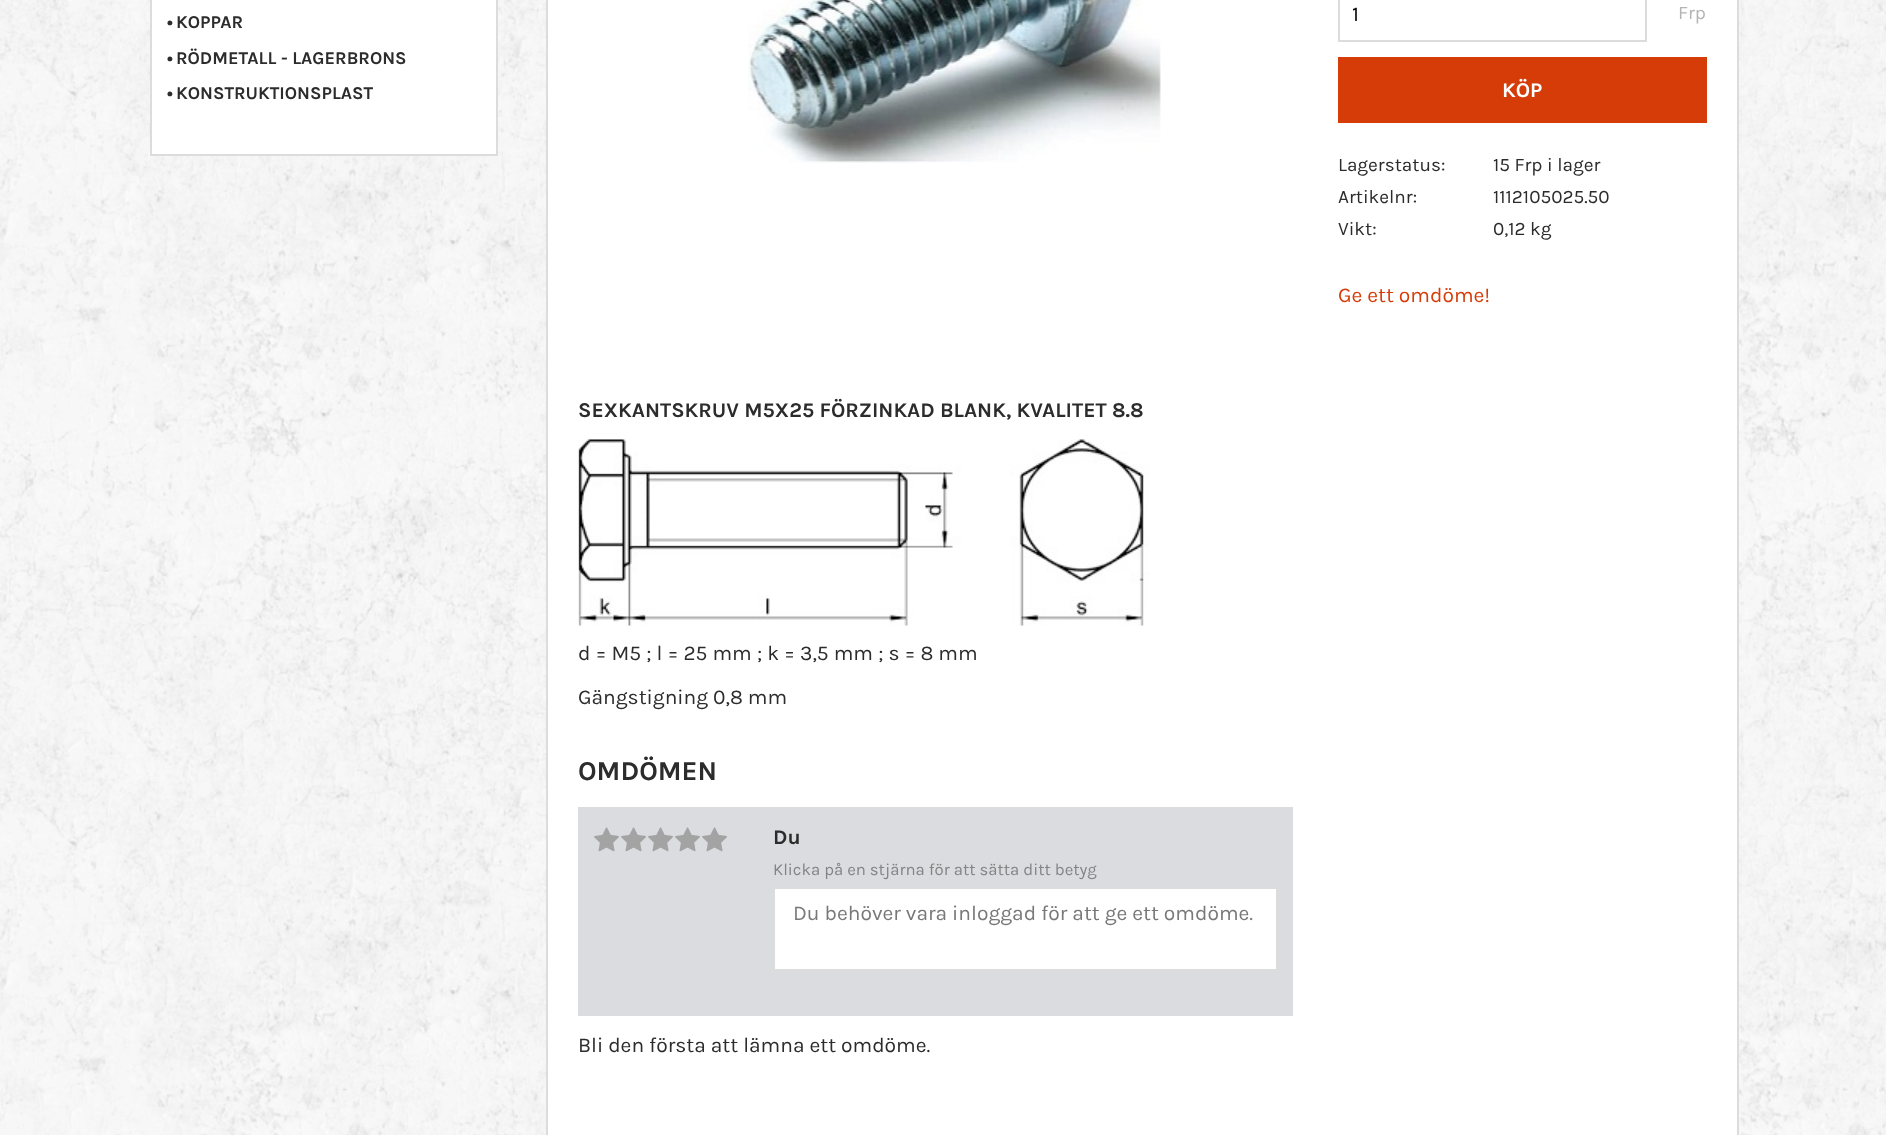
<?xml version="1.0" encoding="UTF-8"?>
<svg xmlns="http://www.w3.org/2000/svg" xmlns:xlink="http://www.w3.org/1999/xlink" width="1886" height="1135">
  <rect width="100%" height="100%" fill="#ffffff" />
  <image x="0" y="0" width="1886" height="1135" xlink:href="image1.png" />
  <rect x="151" y="-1" width="346" height="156" fill="#ffffff" stroke="#dcdcdc" stroke-width="2" />
  <rect x="547" y="-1" width="1191" height="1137" fill="#ffffff" stroke="#dcdcdc" stroke-width="2" />
  <image x="748" y="0" width="413" height="163" xlink:href="image2.png" />
  <rect x="1339" y="-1" width="307" height="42" fill="none" stroke="#dcdcdc" stroke-width="2" />
  <rect x="1338" y="57" width="369" height="66" fill="#d63c08" />
  <image x="578" y="439" width="571" height="187" xlink:href="image3.png" />
  <rect x="578" y="807" width="715" height="209" fill="#dbdcdf" />
  <image x="594" y="827" width="25" height="25" xlink:href="image4.png" />
  <image x="621" y="827" width="25" height="25" xlink:href="image4.png" />
  <image x="648" y="827" width="25" height="25" xlink:href="image4.png" />
  <image x="675" y="827" width="25" height="25" xlink:href="image4.png" />
  <image x="702" y="827" width="25" height="25" xlink:href="image4.png" />
  <rect x="774" y="888" width="503" height="82" fill="#ffffff" stroke="#dcdcdc" stroke-width="2" />
  <text x="167" y="28" style="font-family: Karla; font-size: 18px; font-weight: bold; fill: #2c2c2c">•</text>
  <text x="176" y="28" style="font-family: Karla; font-size: 18px; font-weight: bold; fill: #2c2c2c">KOPPAR</text>
  <text x="167" y="64" style="font-family: Karla; font-size: 18px; font-weight: bold; fill: #2c2c2c">•</text>
  <text x="176" y="64" style="font-family: Karla; font-size: 18px; font-weight: bold; fill: #2c2c2c">RÖDMETALL - LAGERBRONS</text>
  <text x="167" y="99" style="font-family: Karla; font-size: 18px; font-weight: bold; fill: #2c2c2c">•</text>
  <text x="176" y="99" style="font-family: Karla; font-size: 18px; font-weight: bold; fill: #2c2c2c">KONSTRUKTIONSPLAST</text>
  <text x="1352" y="21" style="font-family: Karla; font-size: 21px; fill: #000000">1</text>
  <text x="1678" y="19" style="font-family: Karla; font-size: 19px; fill: #b4b4b4">Frp</text>
  <text x="1502" y="97" style="font-family: Karla; font-size: 21px; font-weight: bold; fill: #ffffff">KÖP</text>
  <text x="1338" y="171" style="font-family: Karla; font-size: 19px; fill: #2c2c2c">Lagerstatus:</text>
  <text x="1493" y="171" style="font-family: Karla; font-size: 19px; fill: #2c2c2c">15 Frp i lager</text>
  <text x="1338" y="203" style="font-family: Karla; font-size: 19px; fill: #2c2c2c">Artikelnr:</text>
  <text x="1493" y="203" style="font-family: Karla; font-size: 19px; fill: #2c2c2c">1112105025.50</text>
  <text x="1338" y="235" style="font-family: Karla; font-size: 19px; fill: #2c2c2c">Vikt:</text>
  <text x="1493" y="235" style="font-family: Karla; font-size: 19px; fill: #2c2c2c">0,12 kg</text>
  <text x="1338" y="302" style="font-family: Karla; font-size: 21px; fill: #d63c08">Ge ett omdöme!</text>
  <text x="578" y="417" style="font-family: Karla; font-size: 21px; font-weight: bold; fill: #2c2c2c">SEXKANTSKRUV M5X25 FÖRZINKAD BLANK, KVALITET 8.8</text>
  <text x="578" y="660" style="font-family: Karla; font-size: 21px; fill: #2c2c2c">d = M5 ; l = 25 mm ; k = 3,5 mm ; s = 8 mm</text>
  <text x="578" y="704" style="font-family: Karla; font-size: 21px; fill: #2c2c2c">Gängstigning 0,8 mm</text>
  <text x="578" y="780" style="font-family: Karla; font-size: 27.25px; font-weight: bold; fill: #2c2c2c">OMDÖMEN</text>
  <text x="773" y="844" style="font-family: Karla; font-size: 21px; font-weight: bold; fill: #2c2c2c">Du</text>
  <text x="773" y="875" style="font-family: Karla; font-size: 16.75px; fill: #848486">Klicka på en stjärna för att sätta ditt betyg</text>
  <text x="793" y="920" style="font-family: Karla; font-size: 21px; fill: #787878">Du behöver vara inloggad för att ge ett omdöme.</text>
  <text x="578" y="1052" style="font-family: Karla; font-size: 21px; fill: #2c2c2c">Bli den första att lämna ett omdöme.</text>
</svg>
